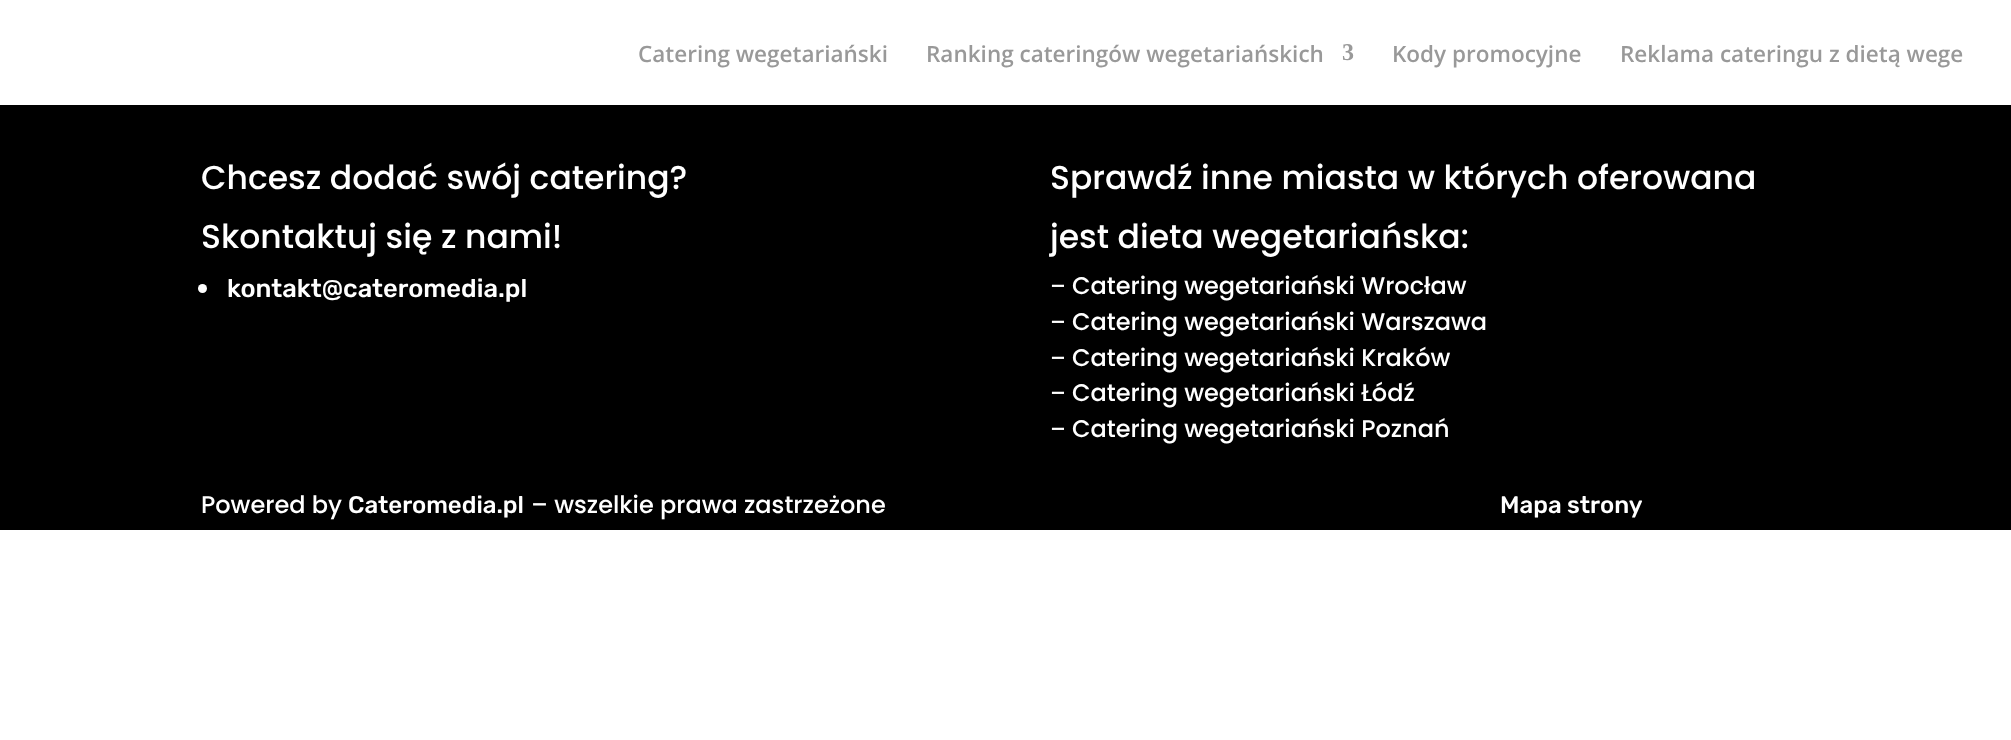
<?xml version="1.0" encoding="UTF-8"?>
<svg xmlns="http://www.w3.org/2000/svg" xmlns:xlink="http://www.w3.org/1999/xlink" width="2011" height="740">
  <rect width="100%" height="100%" fill="#ffffff" />
  <rect y="105" width="2011" height="425" fill="#000000" />
  <circle cx="202.5" cy="288.5" r="4.5" fill="#ffffff" />
  <text x="638" y="62" style="font-family: Open Sans; font-size: 22.5px; font-weight: 600; fill: #999999">Catering wegetariański</text>
  <text x="926" y="62" style="font-family: Open Sans; font-size: 22.5px; font-weight: 600; fill: #999999">Ranking cateringów wegetariańskich</text>
  <text x="1342" y="60" style="font-family: Liberation Serif; font-size: 24px; font-weight: bold; fill: #999999">3</text>
  <text x="1392" y="62" style="font-family: Open Sans; font-size: 22.5px; font-weight: 600; fill: #999999">Kody promocyjne</text>
  <text x="1620" y="62" style="font-family: Open Sans; font-size: 22.5px; font-weight: 600; fill: #999999">Reklama cateringu z dietą wege</text>
  <text x="201" y="189" style="font-family: Poppins; font-size: 33px; font-weight: 500; fill: #ffffff">Chcesz dodać swój catering?</text>
  <text x="201" y="248" style="font-family: Poppins; font-size: 33px; font-weight: 500; fill: #ffffff">Skontaktuj się z nami!</text>
  <text x="227" y="297" style="font-family: Rubik; font-size: 25.5px; font-weight: 300; fill: #ffffff">kontakt@cateromedia.pl</text>
  <text x="1050" y="189" style="font-family: Poppins; font-size: 33px; font-weight: 500; fill: #ffffff">Sprawdź inne miasta w których oferowana</text>
  <text x="1050" y="248" style="font-family: Poppins; font-size: 33px; font-weight: 500; fill: #ffffff">jest dieta wegetariańska:</text>
  <text x="1050" y="294" style="font-family: Poppins; font-size: 22.5px; font-weight: 500; fill: #ffffff">–</text>
  <text x="1072" y="294" style="font-family: Poppins; font-size: 24px; font-weight: 500; fill: #ffffff">Catering wegetariański Wrocław</text>
  <text x="1050" y="330" style="font-family: Poppins; font-size: 22.5px; font-weight: 500; fill: #ffffff">–</text>
  <text x="1072" y="330" style="font-family: Poppins; font-size: 24px; font-weight: 500; fill: #ffffff">Catering wegetariański Warszawa</text>
  <text x="1050" y="366" style="font-family: Poppins; font-size: 22.5px; font-weight: 500; fill: #ffffff">–</text>
  <text x="1072" y="366" style="font-family: Poppins; font-size: 24px; font-weight: 500; fill: #ffffff">Catering wegetariański Kraków</text>
  <text x="1050" y="401" style="font-family: Poppins; font-size: 22.5px; font-weight: 500; fill: #ffffff">–</text>
  <text x="1072" y="401" style="font-family: Poppins; font-size: 24px; font-weight: 500; fill: #ffffff">Catering wegetariański Łódź</text>
  <text x="1050" y="437" style="font-family: Poppins; font-size: 22.5px; font-weight: 500; fill: #ffffff">–</text>
  <text x="1072" y="437" style="font-family: Poppins; font-size: 24px; font-weight: 500; fill: #ffffff">Catering wegetariański Poznań</text>
  <text x="201" y="513" style="font-family: Poppins; font-size: 24px; font-weight: 500; fill: #ffffff">Powered by</text>
  <text x="348" y="513" style="font-family: Rubik; font-size: 24px; font-weight: 300; fill: #ffffff">Cateromedia.pl</text>
  <text x="531" y="513" style="font-family: Poppins; font-size: 24px; font-weight: 500; fill: #ffffff">– wszelkie prawa zastrzeżone</text>
  <text x="1500" y="513" style="font-family: Rubik; font-size: 24px; font-weight: 300; fill: #ffffff">Mapa strony</text>
</svg>
